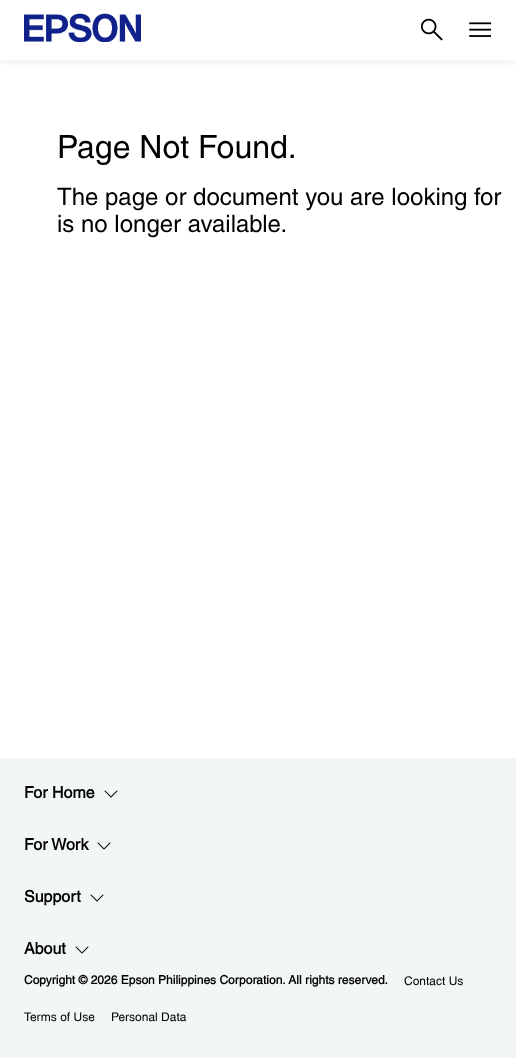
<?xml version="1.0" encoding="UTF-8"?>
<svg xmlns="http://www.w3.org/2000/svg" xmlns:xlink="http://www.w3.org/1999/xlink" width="516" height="1058">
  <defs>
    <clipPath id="clip1"><rect x="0" y="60" width="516" height="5" /></clipPath>
  </defs>
  <rect width="100%" height="100%" fill="#ffffff" />
  <g clip-path="url(#clip1)">
    <rect y="2" width="516" height="60" fill="#000000" fill-opacity="0.08" filter="blur(5px)" />
  </g>
  <image x="24" y="13" width="117" height="29" xlink:href="image1.png" />
  <image x="421" y="18" width="22" height="23" xlink:href="image2.png" />
  <image x="469" y="22" width="23" height="15" xlink:href="image3.png" />
  <rect y="758" width="516" height="300" fill="#f2f6f6" />
  <image x="104" y="790" width="14" height="8" xlink:href="image4.png" />
  <image x="97" y="842" width="14" height="8" xlink:href="image4.png" />
  <image x="90" y="894" width="14" height="8" xlink:href="image4.png" />
  <image x="75" y="946" width="14" height="8" xlink:href="image4.png" />
  <text x="57" y="158" style="font-family: Helvetica; font-size: 32px; fill: #000000">Page Not Found.</text>
  <text x="57" y="205" style="font-family: Helvetica; font-size: 24px; fill: #000000">The page or document you are looking for</text>
  <text x="57" y="232" style="font-family: Helvetica; font-size: 24px; fill: #000000">is no longer available.</text>
  <text x="24" y="798" style="font-family: Helvetica; font-size: 16px; font-weight: bold; fill: #000000">For Home</text>
  <text x="24" y="850" style="font-family: Helvetica; font-size: 16px; font-weight: bold; fill: #000000">For Work</text>
  <text x="24" y="902" style="font-family: Helvetica; font-size: 16px; font-weight: bold; fill: #000000">Support</text>
  <text x="24" y="954" style="font-family: Helvetica; font-size: 16px; font-weight: bold; fill: #000000">About</text>
  <text x="24" y="984" style="font-family: Helvetica; font-size: 12px; font-weight: bold; fill: #000000">Copyright © 2026 Epson Philippines Corporation. All rights reserved.</text>
  <text x="404" y="985" style="font-family: Helvetica; font-size: 12px; fill: #000000">Contact Us</text>
  <text x="24" y="1021" style="font-family: Helvetica; font-size: 12px; fill: #000000">Terms of Use</text>
  <text x="111" y="1021" style="font-family: Helvetica; font-size: 12px; fill: #000000">Personal Data</text>
</svg>
